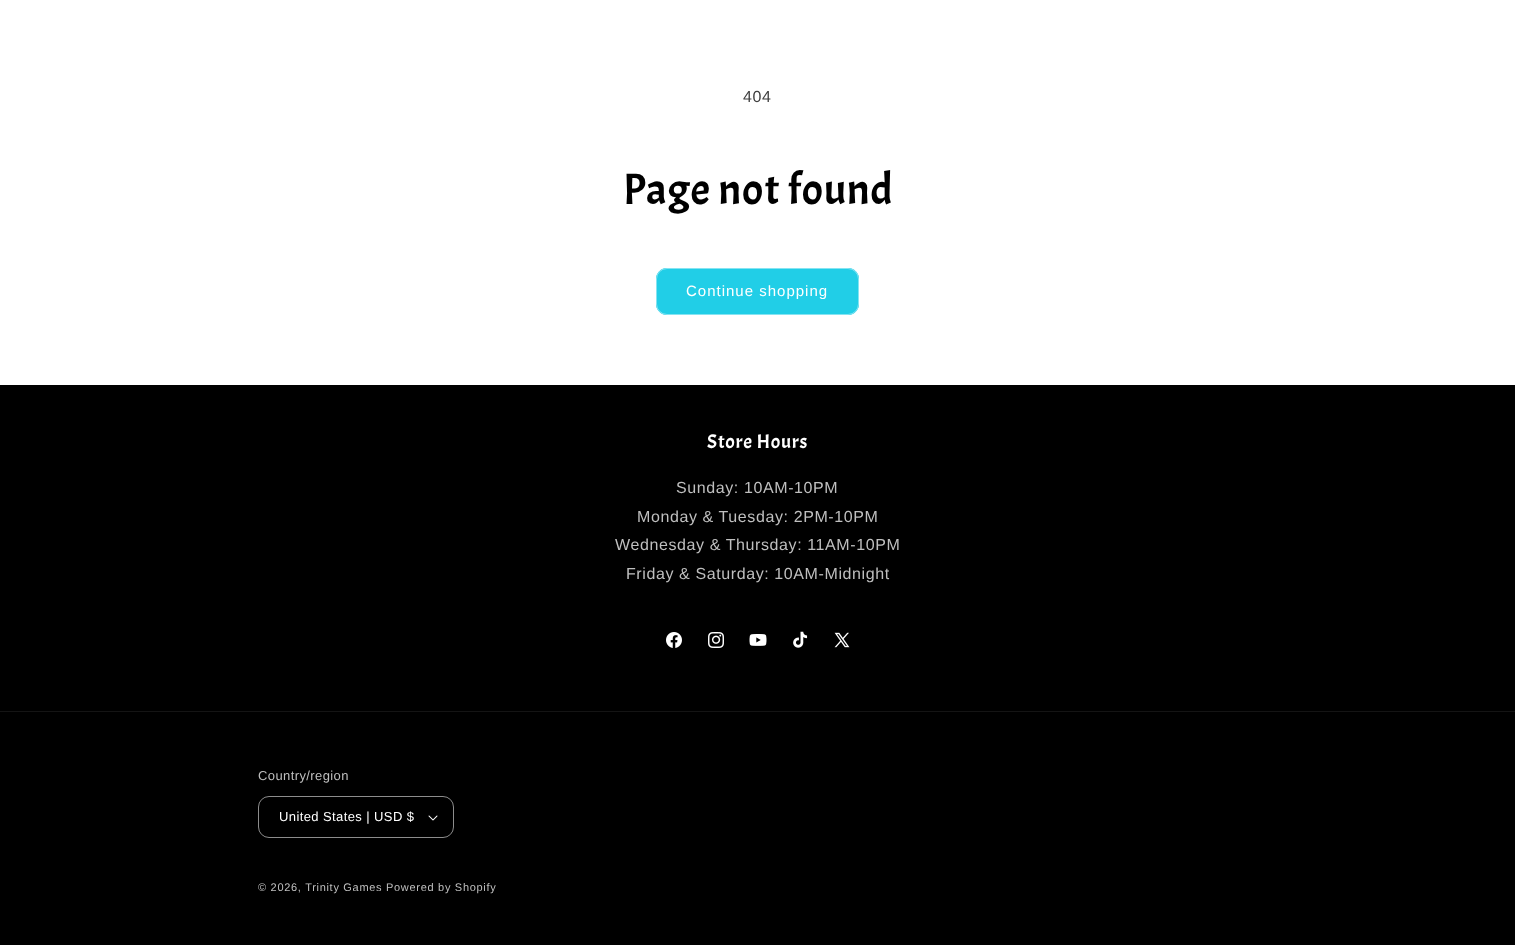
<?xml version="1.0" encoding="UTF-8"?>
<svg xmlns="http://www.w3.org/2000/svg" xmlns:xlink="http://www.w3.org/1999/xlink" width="1515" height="945">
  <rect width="100%" height="100%" fill="#ffffff" />
  <rect x="656" y="268" width="203" height="47" rx="11" fill="#21cee7" />
  <rect x="656.5" y="268.5" width="202" height="46" rx="10.5" fill="none" stroke="#21cee7" />
  <rect x="656.5" y="268.5" width="202" height="46" rx="10.5" fill="none" stroke="#ffffff" stroke-opacity="0.45" />
  <rect y="385" width="1515" height="560" fill="#000000" />
  <image x="666" y="632" width="16" height="16" xlink:href="image1.png" />
  <image x="708" y="632" width="16" height="16" xlink:href="image2.png" />
  <image x="749" y="634" width="18" height="12" xlink:href="image3.png" />
  <image x="793" y="631" width="15" height="17" xlink:href="image4.png" />
  <image x="834" y="632" width="16" height="16" xlink:href="image5.png" />
  <rect y="711" width="1515" height="1" fill="#141414" />
  <image x="428" y="815" width="10" height="6" xlink:href="image6.png" />
  <rect x="258.5" y="796.5" width="195" height="41" rx="10.5" fill="none" stroke="#8c8c8c" />
  <text x="743" y="102" style="font-family: Liberation Sans; font-size: 16px; letter-spacing: 0.6px; fill: #404040">404</text>
  <text x="623" y="204" style="font-family: Acme; font-size: 44px; letter-spacing: 0.7px; fill: #000000">Page not found</text>
  <text x="686" y="296" style="font-family: Liberation Sans; font-size: 15px; letter-spacing: 1px; fill: #ffffff">Continue shopping</text>
  <text x="707" y="448" style="font-family: Acme; font-size: 19.75px; letter-spacing: 0.7px; fill: #ffffff">Store Hours</text>
  <text x="676" y="493" style="font-family: Liberation Sans; font-size: 16px; letter-spacing: 0.6px; fill: #bfbfbf">Sunday: 10AM-10PM</text>
  <text x="637" y="522" style="font-family: Liberation Sans; font-size: 16px; letter-spacing: 0.6px; fill: #bfbfbf">Monday &amp; Tuesday: 2PM-10PM</text>
  <text x="615" y="550" style="font-family: Liberation Sans; font-size: 16px; letter-spacing: 0.6px; fill: #bfbfbf">Wednesday &amp; Thursday: 11AM-10PM</text>
  <text x="626" y="579" style="font-family: Liberation Sans; font-size: 16px; letter-spacing: 0.6px; fill: #bfbfbf">Friday &amp; Saturday: 10AM-Midnight</text>
  <text x="258" y="780" style="font-family: Liberation Sans; font-size: 13px; letter-spacing: 0.4px; fill: #bfbfbf">Country/region</text>
  <text x="279" y="821" style="font-family: Liberation Sans; font-size: 13px; letter-spacing: 0.4px; fill: #ffffff">United States | USD $</text>
  <text x="258" y="891" style="font-family: Liberation Sans; font-size: 11px; letter-spacing: 0.7px; fill: #bfbfbf">© 2026, Trinity Games</text>
  <text x="386" y="891" style="font-family: Liberation Sans; font-size: 11px; letter-spacing: 0.7px; fill: #bfbfbf">Powered by Shopify</text>
</svg>
